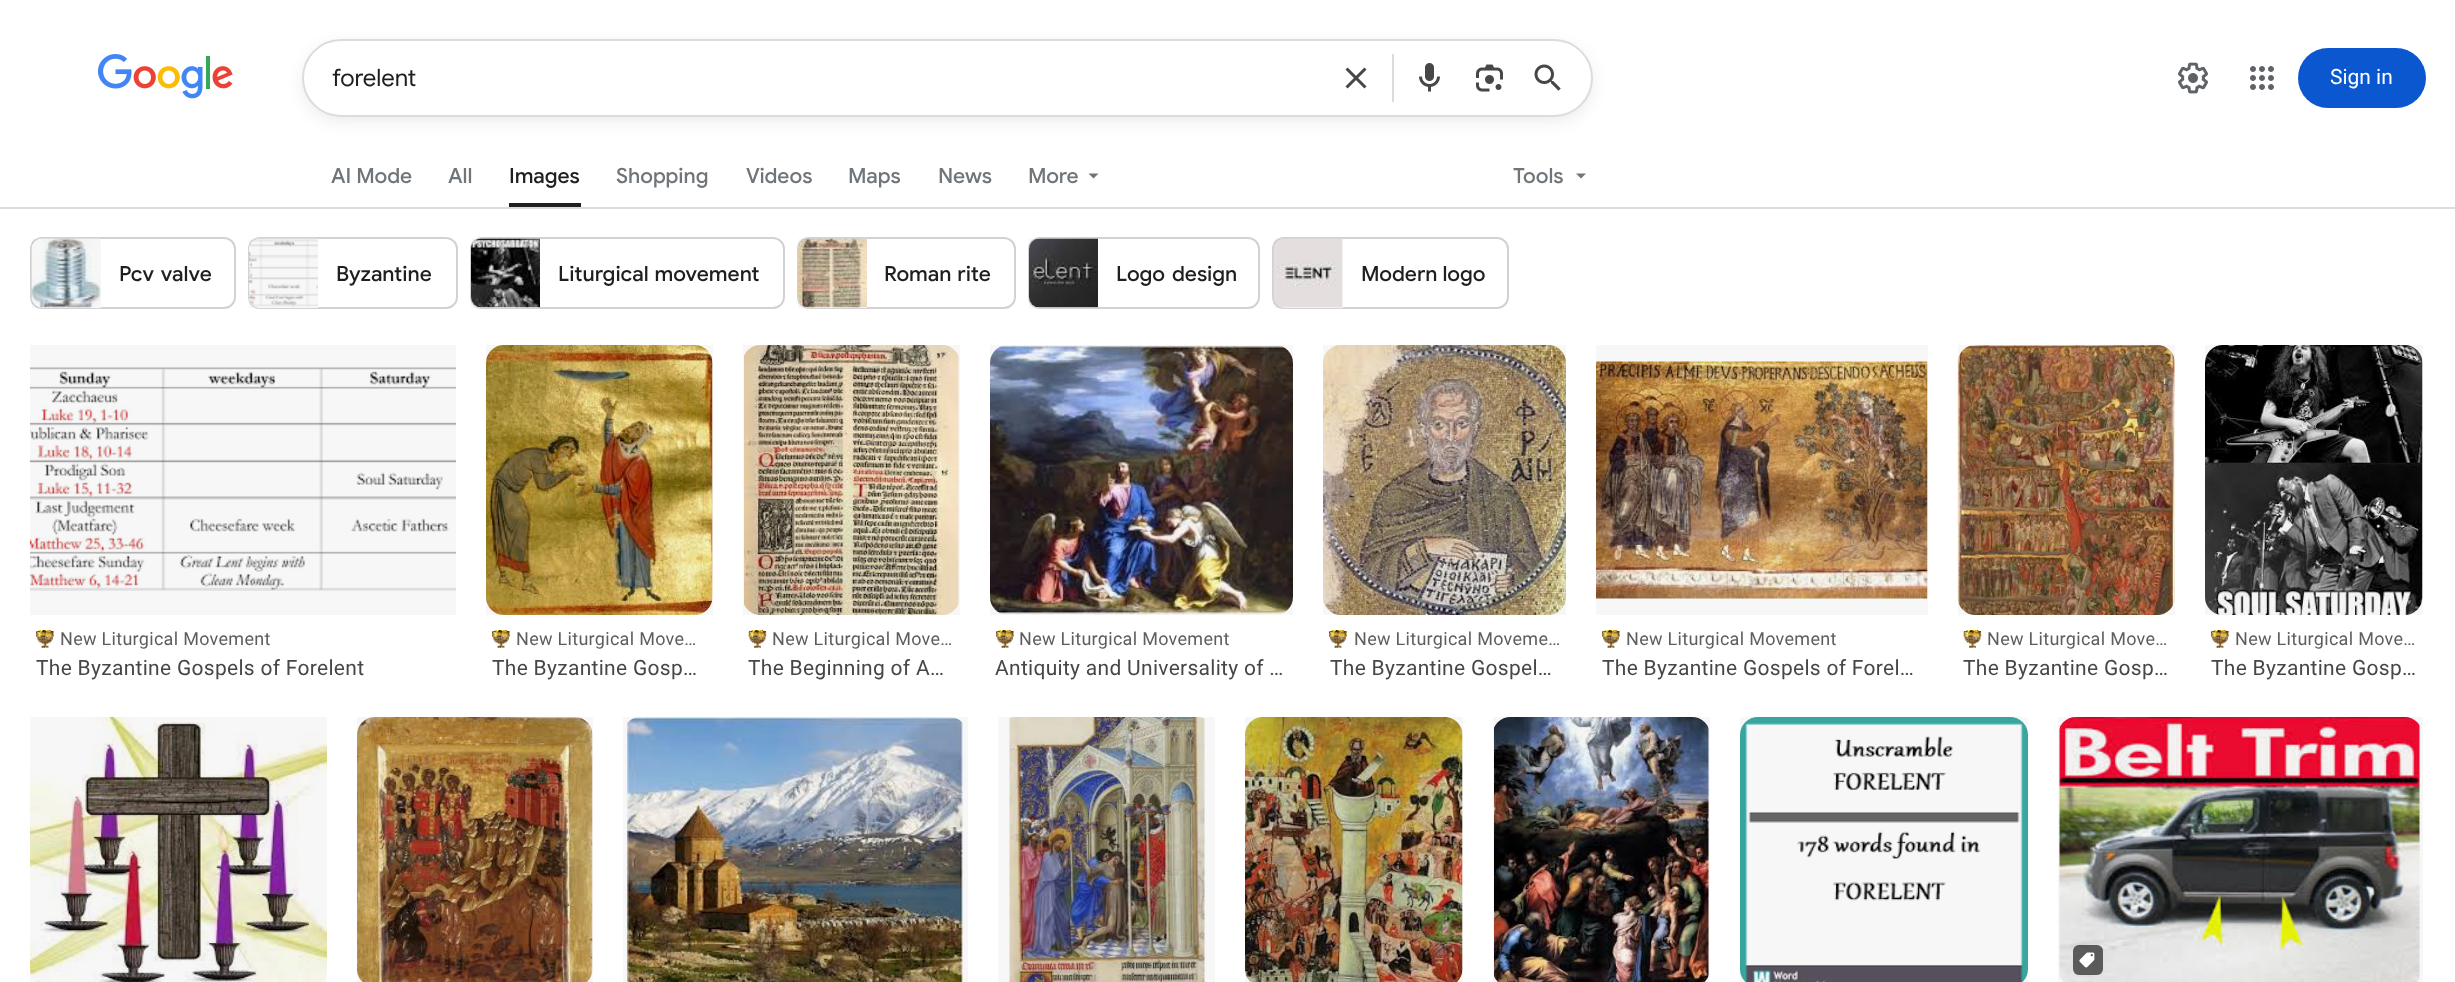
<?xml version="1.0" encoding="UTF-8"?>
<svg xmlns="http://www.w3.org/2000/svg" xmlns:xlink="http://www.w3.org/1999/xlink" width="2455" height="982">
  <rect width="100%" height="100%" fill="#ffffff" />
  <image x="98" y="54" width="135" height="45" xlink:href="image1.png" />
  <rect x="302" y="44" width="1291" height="78" rx="39" fill="#1f1f1f" fill-opacity="0.08" filter="blur(7.5px)" />
  <rect x="303" y="40" width="1289" height="76" rx="38" fill="#ffffff" stroke="#dadce0" stroke-width="2" />
  <image x="1345" y="67" width="22" height="22" xlink:href="image2.png" />
  <rect x="1392" y="54" width="2" height="48" fill="#dadce0" />
  <image x="1419" y="63" width="21" height="29" xlink:href="image3.png" />
  <image x="1476" y="64" width="27" height="28" xlink:href="image4.png" />
  <image x="1534" y="64" width="27" height="27" xlink:href="image5.png" />
  <image x="2178" y="62" width="30" height="32" xlink:href="image6.png" />
  <image x="2250" y="66" width="24" height="24" xlink:href="image7.png" />
  <rect x="2298" y="48" width="128" height="60" rx="30" fill="#0b57d0" />
  <rect x="509" y="203" width="72" height="4" fill="#1f1f1f" />
  <path d="M 1088.5 173.5 l 5 5 l 5 -5 z" fill="#70757a" />
  <path d="M 1576 173.5 l 5 5 l 5 -5 z" fill="#70757a" />
  <rect y="207" width="2455" height="2" fill="#dadce0" />
  <rect x="31" y="238" width="204" height="70" rx="11" fill="none" stroke="#d2d2d2" stroke-width="2" />
  <path d="M 43 239 h 58 v 69 h -58 c -6 0 -11 -5 -11 -11 v -47 c 0 -6 5 -11 11 -11 z" fill="#ffffff" />
  <image x="31" y="238" width="70" height="70" xlink:href="image8.png" />
  <rect x="32" y="239" width="69" height="69" fill="#000000" fill-opacity="0.03" />
  <rect x="249" y="238" width="208" height="70" rx="11" fill="none" stroke="#d2d2d2" stroke-width="2" />
  <path d="M 260 239 h 58 v 69 h -58 c -6 0 -11 -5 -11 -11 v -47 c 0 -6 5 -11 11 -11 z" fill="#ffffff" />
  <image x="249" y="238" width="69" height="69" xlink:href="image9.png" />
  <rect x="249" y="239" width="69" height="69" fill="#000000" fill-opacity="0.03" />
  <rect x="471" y="238" width="313" height="70" rx="11" fill="none" stroke="#d2d2d2" stroke-width="2" />
  <path d="M 482 239 h 58 v 69 h -58 c -6 0 -11 -5 -11 -11 v -47 c 0 -6 5 -11 11 -11 z" fill="#ffffff" />
  <image x="471" y="238" width="69" height="70" xlink:href="image10.png" />
  <rect x="471" y="239" width="69" height="69" fill="#000000" fill-opacity="0.03" />
  <rect x="798" y="238" width="217" height="70" rx="11" fill="none" stroke="#d2d2d2" stroke-width="2" />
  <path d="M 809 239 h 58 v 69 h -58 c -6 0 -11 -5 -11 -11 v -47 c 0 -6 5 -11 11 -11 z" fill="#ffffff" />
  <image x="798" y="238" width="69" height="70" xlink:href="image11.png" />
  <rect x="798" y="239" width="69" height="69" fill="#000000" fill-opacity="0.03" />
  <rect x="1029" y="238" width="230" height="70" rx="11" fill="none" stroke="#d2d2d2" stroke-width="2" />
  <path d="M 1040 239 h 58 v 69 h -58 c -6 0 -11 -5 -11 -11 v -47 c 0 -6 5 -11 11 -11 z" fill="#ffffff" />
  <image x="1029" y="238" width="69" height="70" xlink:href="image12.png" />
  <rect x="1029" y="239" width="69" height="69" fill="#000000" fill-opacity="0.03" />
  <rect x="1273" y="238" width="235" height="70" rx="11" fill="none" stroke="#d2d2d2" stroke-width="2" />
  <path d="M 1285 239 h 58 v 69 h -58 c -6 0 -11 -5 -11 -11 v -47 c 0 -6 5 -11 11 -11 z" fill="#ffffff" />
  <image x="1273" y="238" width="70" height="70" xlink:href="image13.png" />
  <rect x="1274" y="239" width="69" height="69" fill="#000000" fill-opacity="0.03" />
  <image x="30" y="367" width="426" height="224" xlink:href="image14.png" />
  <rect x="30" y="345" width="426" height="270" fill="#000000" fill-opacity="0.03" />
  <image x="36" y="630" width="18" height="18" xlink:href="image15.png" />
  <image x="486" y="345" width="227" height="270" xlink:href="image16.png" />
  <rect x="486" y="345" width="227" height="270" fill="#000000" fill-opacity="0.03" />
  <image x="492" y="630" width="18" height="18" xlink:href="image17.png" />
  <image x="744" y="345" width="215" height="270" xlink:href="image18.png" />
  <rect x="743" y="345" width="217" height="270" fill="#000000" fill-opacity="0.03" />
  <image x="748" y="630" width="19" height="18" xlink:href="image19.png" />
  <image x="990" y="345" width="303" height="270" xlink:href="image20.png" />
  <rect x="990" y="345" width="303" height="270" fill="#000000" fill-opacity="0.03" />
  <image x="996" y="630" width="18" height="18" xlink:href="image21.png" />
  <image x="1323" y="345" width="243" height="270" xlink:href="image22.png" />
  <rect x="1323" y="345" width="243" height="270" fill="#000000" fill-opacity="0.03" />
  <image x="1329" y="630" width="18" height="18" xlink:href="image23.png" />
  <image x="1596" y="361" width="332" height="238" xlink:href="image24.png" />
  <rect x="1596" y="345" width="332" height="270" fill="#000000" fill-opacity="0.03" />
  <image x="1602" y="630" width="18" height="18" xlink:href="image23.png" />
  <image x="1957" y="345" width="218" height="270" xlink:href="image25.png" />
  <rect x="1958" y="345" width="217" height="270" fill="#000000" fill-opacity="0.03" />
  <image x="1963" y="630" width="19" height="18" xlink:href="image26.png" />
  <image x="2205" y="345" width="218" height="270" xlink:href="image27.png" />
  <rect x="2205" y="345" width="218" height="270" fill="#000000" fill-opacity="0.03" />
  <image x="2211" y="630" width="18" height="18" xlink:href="image21.png" />
  <image x="30" y="717" width="297" height="265" xlink:href="image28.png" />
  <rect x="30" y="717" width="297" height="265" fill="#000000" fill-opacity="0.03" />
  <image x="357" y="717" width="236" height="265" xlink:href="image29.png" />
  <rect x="357" y="717" width="236" height="265" fill="#000000" fill-opacity="0.03" />
  <image x="627" y="717" width="336" height="265" xlink:href="image30.png" />
  <rect x="623" y="717" width="345" height="265" fill="#000000" fill-opacity="0.03" />
  <image x="1009" y="717" width="196" height="265" xlink:href="image31.png" />
  <rect x="998" y="717" width="217" height="265" fill="#000000" fill-opacity="0.03" />
  <image x="1245" y="717" width="218" height="265" xlink:href="image32.png" />
  <rect x="1245" y="717" width="218" height="265" fill="#000000" fill-opacity="0.03" />
  <image x="1494" y="717" width="215" height="265" xlink:href="image33.png" />
  <rect x="1493" y="717" width="217" height="265" fill="#000000" fill-opacity="0.03" />
  <image x="1740" y="717" width="288" height="265" xlink:href="image34.png" />
  <rect x="1740" y="717" width="288" height="265" fill="#000000" fill-opacity="0.03" />
  <image x="2059" y="717" width="361" height="265" xlink:href="image35.png" />
  <rect x="2058" y="717" width="365" height="265" fill="#000000" fill-opacity="0.03" />
  <rect x="2073" y="945" width="30" height="30" rx="6" fill="#000000" fill-opacity="0.6" />
  <image x="2079" y="952" width="16" height="16" xlink:href="image36.png" />
  <text x="332" y="86" style="font-family: Google Sans; font-size: 24px; fill: #1f1f1f">forelent</text>
  <text x="2330" y="84" style="font-family: Roboto; font-size: 21px; fill: #ffffff">Sign in</text>
  <text x="331" y="183" style="font-family: Google Sans; font-size: 21px; font-weight: 500; fill: #70757a">AI Mode</text>
  <text x="448" y="183" style="font-family: Google Sans; font-size: 21px; font-weight: 500; fill: #70757a">All</text>
  <text x="509" y="183" style="font-family: Google Sans; font-size: 21px; font-weight: 500; fill: #1f1f1f">Images</text>
  <text x="616" y="183" style="font-family: Google Sans; font-size: 21px; font-weight: 500; fill: #70757a">Shopping</text>
  <text x="746" y="183" style="font-family: Google Sans; font-size: 21px; font-weight: 500; fill: #70757a">Videos</text>
  <text x="848" y="183" style="font-family: Google Sans; font-size: 21px; font-weight: 500; fill: #70757a">Maps</text>
  <text x="938" y="183" style="font-family: Google Sans; font-size: 21px; font-weight: 500; fill: #70757a">News</text>
  <text x="1028" y="183" style="font-family: Google Sans; font-size: 21px; font-weight: 500; fill: #70757a">More</text>
  <text x="1513" y="183" style="font-family: Google Sans; font-size: 21px; font-weight: 500; fill: #70757a">Tools</text>
  <text x="119" y="281" word-spacing="2" style="font-family: Google Sans; font-size: 21px; font-weight: 500; fill: #1f1f1f">Pcv valve</text>
  <text x="336" y="281" style="font-family: Google Sans; font-size: 21px; font-weight: 500; fill: #1f1f1f">Byzantine</text>
  <text x="558" y="281" word-spacing="1" style="font-family: Google Sans; font-size: 21px; font-weight: 500; fill: #1f1f1f">Liturgical movement</text>
  <text x="884" y="281" word-spacing="1" style="font-family: Google Sans; font-size: 21px; font-weight: 500; fill: #1f1f1f">Roman rite</text>
  <text x="1116" y="281" word-spacing="2" style="font-family: Google Sans; font-size: 21px; font-weight: 500; fill: #1f1f1f">Logo design</text>
  <text x="1361" y="281" style="font-family: Google Sans; font-size: 21px; font-weight: 500; fill: #1f1f1f">Modern logo</text>
  <text x="60" y="645" style="font-family: Roboto; font-size: 18px; letter-spacing: 0.3px; fill: #5e5e5e">New Liturgical Movement</text>
  <text x="36" y="675" style="font-family: Roboto; font-size: 21px; letter-spacing: 0.3px; fill: #474747">The Byzantine Gospels of Forelent</text>
  <text x="516" y="645" style="font-family: Roboto; font-size: 18px; letter-spacing: 0.3px; fill: #5e5e5e">New Liturgical Move…</text>
  <text x="492" y="675" style="font-family: Roboto; font-size: 21px; letter-spacing: 0.3px; fill: #474747">The Byzantine Gosp…</text>
  <text x="772" y="645" style="font-family: Roboto; font-size: 18px; letter-spacing: 0.3px; fill: #5e5e5e">New Liturgical Move…</text>
  <text x="748" y="675" style="font-family: Roboto; font-size: 21px; letter-spacing: 0.3px; fill: #474747">The Beginning of A…</text>
  <text x="1019" y="645" style="font-family: Roboto; font-size: 18px; letter-spacing: 0.3px; fill: #5e5e5e">New Liturgical Movement</text>
  <text x="995" y="675" style="font-family: Roboto; font-size: 21px; letter-spacing: 0.3px; fill: #474747">Antiquity and Universality of …</text>
  <text x="1354" y="645" style="font-family: Roboto; font-size: 18px; letter-spacing: 0.3px; fill: #5e5e5e">New Liturgical Moveme…</text>
  <text x="1330" y="675" style="font-family: Roboto; font-size: 21px; letter-spacing: 0.3px; fill: #474747">The Byzantine Gospel…</text>
  <text x="1626" y="645" style="font-family: Roboto; font-size: 18px; letter-spacing: 0.3px; fill: #5e5e5e">New Liturgical Movement</text>
  <text x="1602" y="675" style="font-family: Roboto; font-size: 21px; letter-spacing: 0.3px; fill: #474747">The Byzantine Gospels of Forel…</text>
  <text x="1987" y="645" style="font-family: Roboto; font-size: 18px; letter-spacing: 0.3px; fill: #5e5e5e">New Liturgical Move…</text>
  <text x="1963" y="675" style="font-family: Roboto; font-size: 21px; letter-spacing: 0.3px; fill: #474747">The Byzantine Gosp…</text>
  <text x="2235" y="645" style="font-family: Roboto; font-size: 18px; letter-spacing: 0.3px; fill: #5e5e5e">New Liturgical Move…</text>
  <text x="2211" y="675" style="font-family: Roboto; font-size: 21px; letter-spacing: 0.3px; fill: #474747">The Byzantine Gosp…</text>
</svg>
